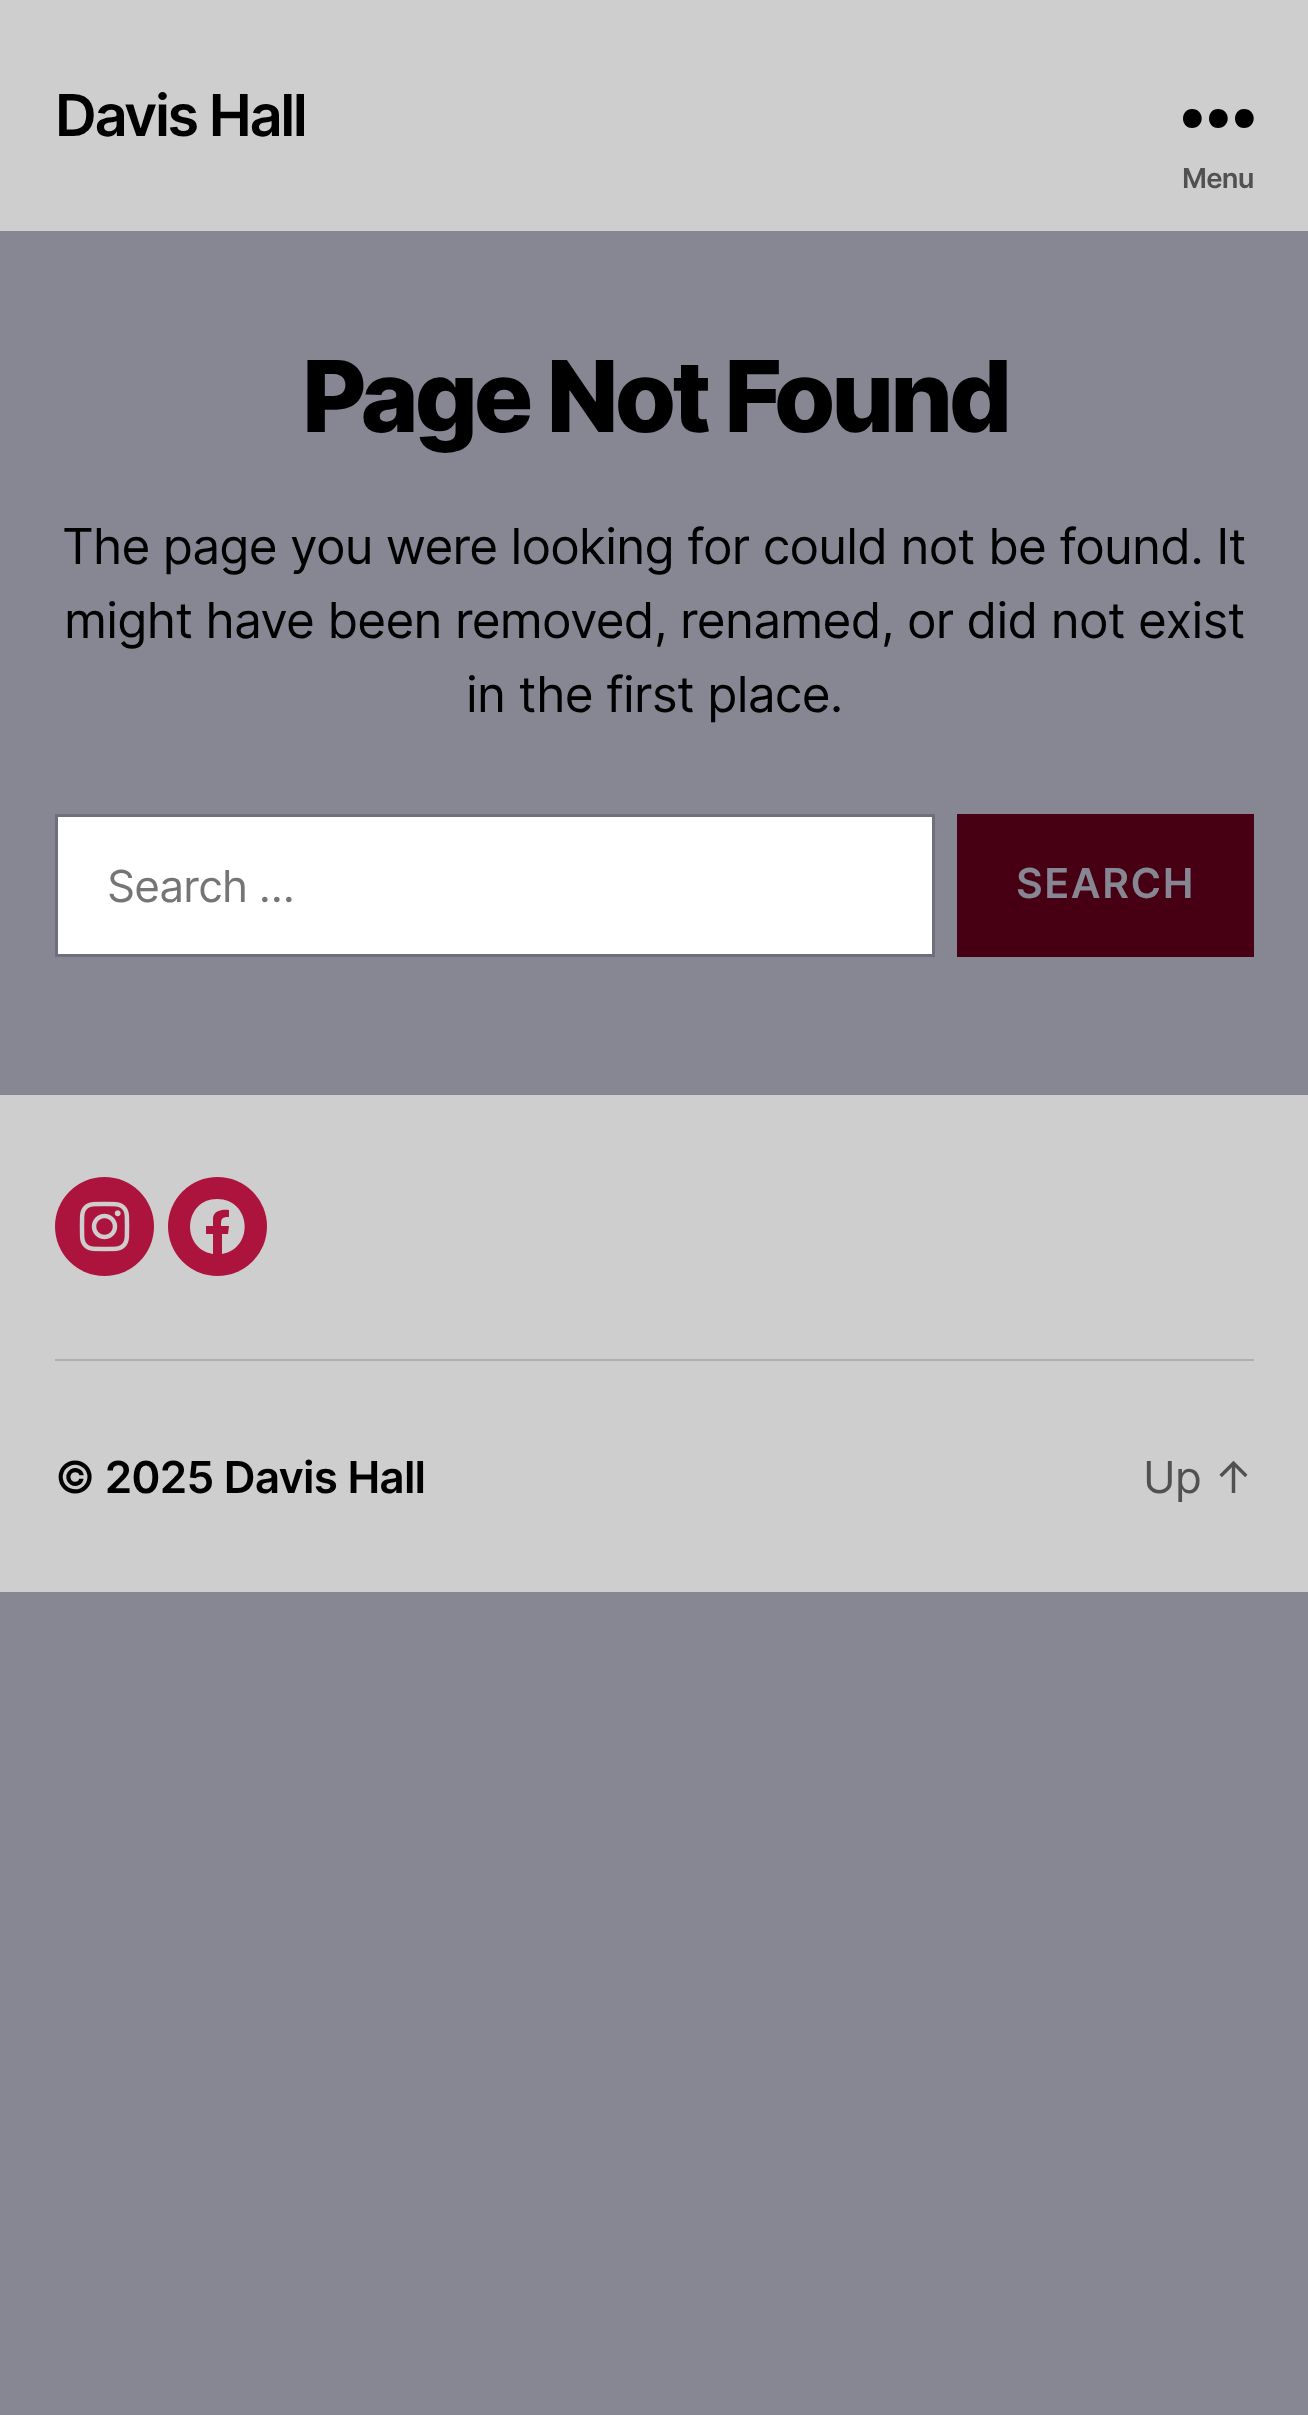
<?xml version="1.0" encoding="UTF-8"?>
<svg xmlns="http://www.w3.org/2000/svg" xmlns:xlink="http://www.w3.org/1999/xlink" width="1308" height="2415">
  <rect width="100%" height="100%" fill="#868793" />
  <rect width="1308" height="231" fill="#cecece" />
  <path d="M 1192 128 c -12 0 -12 -19 0 -19 c 13 0 13 19 0 19 z m 26 0 c -12 0 -12 -19 0 -19 c 13 0 13 19 0 19 z m 26 0 c -12 0 -12 -19 0 -19 c 13 0 13 19 0 19 z" fill="#000000" fill-rule="evenodd" />
  <rect x="56.5" y="815.5" width="877" height="140" fill="#ffffff" stroke="#6e6f7c" stroke-width="3" />
  <rect x="957" y="814" width="297" height="143" fill="#470013" />
  <rect y="1095" width="1308" height="497" fill="#cecece" />
  <rect x="55" y="1359" width="1199" height="2" fill="#afafaf" />
  <circle cx="104.5" cy="1226.5" r="49.5" fill="#ad143d" />
  <image x="79" y="1201" width="51" height="51" xlink:href="image1.png" />
  <circle cx="217.5" cy="1226.5" r="49.5" fill="#ad143d" />
  <path d="M 217 1199 c -33 0 -37 49 -4 55 v -20 h -7 v -8 h 7 v -8 c 1 -8 10 -9 16 -8 v 7 c -8 0 -8 2 -8 9 h 8 l -1 8 h -6 v 20 c 33 -6 29 -55 -5 -55 z" fill="#cecece" />
  <text x="55" y="136" style="font-family: Inter; font-size: 57.75px; font-weight: 600; letter-spacing: -2.4px; fill: #000000">Davis Hall</text>
  <text x="1182" y="188" style="font-family: Inter; font-size: 27.5px; font-weight: 600; letter-spacing: -0.75px; fill: #515151">Menu</text>
  <text x="302" y="432" style="font-family: Inter; font-size: 99px; font-weight: 800; letter-spacing: -4.1px; fill: #000000">Page Not Found</text>
  <text x="62" y="564" style="font-family: Inter; font-size: 49.5px; letter-spacing: -0.75px; fill: #000000">The page you were looking for could not be found. It</text>
  <text x="64" y="638" style="font-family: Inter; font-size: 49.5px; letter-spacing: -0.75px; fill: #000000">might have been removed, renamed, or did not exist</text>
  <text x="466" y="712" style="font-family: Inter; font-size: 49.5px; letter-spacing: -0.75px; fill: #000000">in the first place.</text>
  <text x="107" y="902" style="font-family: Inter; font-size: 44px; letter-spacing: -0.75px; fill: #757575">Search …</text>
  <text x="1016" y="898" style="font-family: Inter; font-size: 41.25px; font-weight: 600; letter-spacing: 1.5px; fill: #868793">SEARCH</text>
  <text x="55" y="1493" style="font-family: Inter; font-size: 44px; font-weight: 600; letter-spacing: -0.75px; fill: #000000">© 2025 Davis Hall</text>
  <text x="1143" y="1493" style="font-family: Inter; font-size: 44px; letter-spacing: -0.75px; fill: #515151">Up ↑</text>
</svg>
